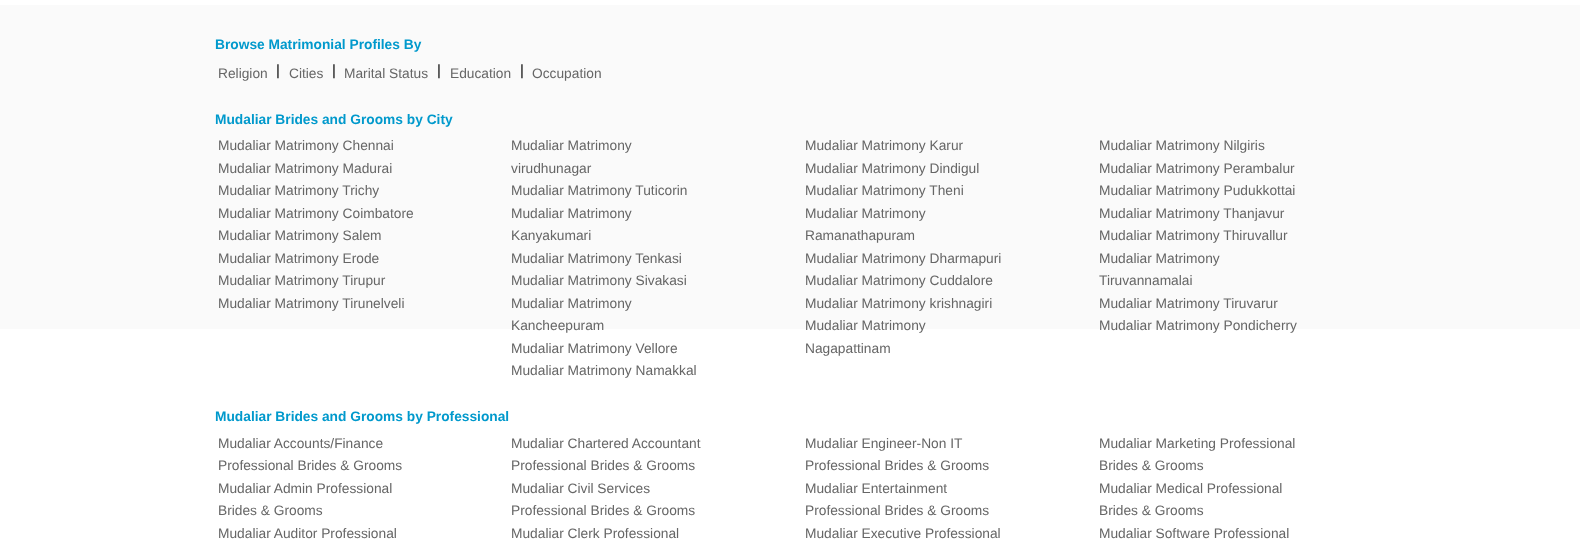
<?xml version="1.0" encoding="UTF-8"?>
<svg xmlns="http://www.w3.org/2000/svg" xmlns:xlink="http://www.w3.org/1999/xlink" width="1580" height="549">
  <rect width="100%" height="100%" fill="#ffffff" />
  <rect y="5" width="1580" height="324" fill="#fafafa" />
  <text x="215" y="49" style="font-family: Liberation Sans; font-size: 13.75px; font-weight: bold; fill: #0099cc">Browse Matrimonial Profiles By</text>
  <text x="218" y="78" style="font-family: Liberation Sans; font-size: 13.75px; fill: #666666">Religion</text>
  <text x="276" y="75" style="font-family: Liberation Sans; font-size: 15px; fill: #000000">|</text>
  <text x="289" y="78" style="font-family: Liberation Sans; font-size: 13.75px; fill: #666666">Cities</text>
  <text x="332" y="75" style="font-family: Liberation Sans; font-size: 15px; fill: #000000">|</text>
  <text x="344" y="78" style="font-family: Liberation Sans; font-size: 13.75px; fill: #666666">Marital Status</text>
  <text x="437" y="75" style="font-family: Liberation Sans; font-size: 15px; fill: #000000">|</text>
  <text x="450" y="78" style="font-family: Liberation Sans; font-size: 13.75px; fill: #666666">Education</text>
  <text x="520" y="75" style="font-family: Liberation Sans; font-size: 15px; fill: #000000">|</text>
  <text x="532" y="78" style="font-family: Liberation Sans; font-size: 13.75px; fill: #666666">Occupation</text>
  <text x="215" y="124" style="font-family: Liberation Sans; font-size: 13.75px; font-weight: bold; fill: #0099cc">Mudaliar Brides and Grooms by City</text>
  <text x="218" y="150" style="font-family: Liberation Sans; font-size: 13.75px; fill: #666666">Mudaliar Matrimony Chennai</text>
  <text x="218" y="173" style="font-family: Liberation Sans; font-size: 13.75px; fill: #666666">Mudaliar Matrimony Madurai</text>
  <text x="218" y="195" style="font-family: Liberation Sans; font-size: 13.75px; fill: #666666">Mudaliar Matrimony Trichy</text>
  <text x="218" y="218" style="font-family: Liberation Sans; font-size: 13.75px; fill: #666666">Mudaliar Matrimony Coimbatore</text>
  <text x="218" y="240" style="font-family: Liberation Sans; font-size: 13.75px; fill: #666666">Mudaliar Matrimony Salem</text>
  <text x="218" y="263" style="font-family: Liberation Sans; font-size: 13.75px; fill: #666666">Mudaliar Matrimony Erode</text>
  <text x="218" y="285" style="font-family: Liberation Sans; font-size: 13.75px; fill: #666666">Mudaliar Matrimony Tirupur</text>
  <text x="218" y="308" style="font-family: Liberation Sans; font-size: 13.75px; fill: #666666">Mudaliar Matrimony Tirunelveli</text>
  <text x="511" y="150" style="font-family: Liberation Sans; font-size: 13.75px; fill: #666666">Mudaliar Matrimony</text>
  <text x="511" y="173" style="font-family: Liberation Sans; font-size: 13.75px; fill: #666666">virudhunagar</text>
  <text x="511" y="195" style="font-family: Liberation Sans; font-size: 13.75px; fill: #666666">Mudaliar Matrimony Tuticorin</text>
  <text x="511" y="218" style="font-family: Liberation Sans; font-size: 13.75px; fill: #666666">Mudaliar Matrimony</text>
  <text x="511" y="240" style="font-family: Liberation Sans; font-size: 13.75px; fill: #666666">Kanyakumari</text>
  <text x="511" y="263" style="font-family: Liberation Sans; font-size: 13.75px; fill: #666666">Mudaliar Matrimony Tenkasi</text>
  <text x="511" y="285" style="font-family: Liberation Sans; font-size: 13.75px; fill: #666666">Mudaliar Matrimony Sivakasi</text>
  <text x="511" y="308" style="font-family: Liberation Sans; font-size: 13.75px; fill: #666666">Mudaliar Matrimony</text>
  <text x="511" y="330" style="font-family: Liberation Sans; font-size: 13.75px; fill: #666666">Kancheepuram</text>
  <text x="511" y="353" style="font-family: Liberation Sans; font-size: 13.75px; fill: #666666">Mudaliar Matrimony Vellore</text>
  <text x="511" y="375" style="font-family: Liberation Sans; font-size: 13.75px; fill: #666666">Mudaliar Matrimony Namakkal</text>
  <text x="805" y="150" style="font-family: Liberation Sans; font-size: 13.75px; fill: #666666">Mudaliar Matrimony Karur</text>
  <text x="805" y="173" style="font-family: Liberation Sans; font-size: 13.75px; fill: #666666">Mudaliar Matrimony Dindigul</text>
  <text x="805" y="195" style="font-family: Liberation Sans; font-size: 13.75px; fill: #666666">Mudaliar Matrimony Theni</text>
  <text x="805" y="218" style="font-family: Liberation Sans; font-size: 13.75px; fill: #666666">Mudaliar Matrimony</text>
  <text x="805" y="240" style="font-family: Liberation Sans; font-size: 13.75px; fill: #666666">Ramanathapuram</text>
  <text x="805" y="263" style="font-family: Liberation Sans; font-size: 13.75px; fill: #666666">Mudaliar Matrimony Dharmapuri</text>
  <text x="805" y="285" style="font-family: Liberation Sans; font-size: 13.75px; fill: #666666">Mudaliar Matrimony Cuddalore</text>
  <text x="805" y="308" style="font-family: Liberation Sans; font-size: 13.75px; fill: #666666">Mudaliar Matrimony krishnagiri</text>
  <text x="805" y="330" style="font-family: Liberation Sans; font-size: 13.75px; fill: #666666">Mudaliar Matrimony</text>
  <text x="805" y="353" style="font-family: Liberation Sans; font-size: 13.75px; fill: #666666">Nagapattinam</text>
  <text x="1099" y="150" style="font-family: Liberation Sans; font-size: 13.75px; fill: #666666">Mudaliar Matrimony Nilgiris</text>
  <text x="1099" y="173" style="font-family: Liberation Sans; font-size: 13.75px; fill: #666666">Mudaliar Matrimony Perambalur</text>
  <text x="1099" y="195" style="font-family: Liberation Sans; font-size: 13.75px; fill: #666666">Mudaliar Matrimony Pudukkottai</text>
  <text x="1099" y="218" style="font-family: Liberation Sans; font-size: 13.75px; fill: #666666">Mudaliar Matrimony Thanjavur</text>
  <text x="1099" y="240" style="font-family: Liberation Sans; font-size: 13.75px; fill: #666666">Mudaliar Matrimony Thiruvallur</text>
  <text x="1099" y="263" style="font-family: Liberation Sans; font-size: 13.75px; fill: #666666">Mudaliar Matrimony</text>
  <text x="1099" y="285" style="font-family: Liberation Sans; font-size: 13.75px; fill: #666666">Tiruvannamalai</text>
  <text x="1099" y="308" style="font-family: Liberation Sans; font-size: 13.75px; fill: #666666">Mudaliar Matrimony Tiruvarur</text>
  <text x="1099" y="330" style="font-family: Liberation Sans; font-size: 13.75px; fill: #666666">Mudaliar Matrimony Pondicherry</text>
  <text x="215" y="421" style="font-family: Liberation Sans; font-size: 13.75px; font-weight: bold; fill: #0099cc">Mudaliar Brides and Grooms by Professional</text>
  <text x="218" y="448" style="font-family: Liberation Sans; font-size: 13.75px; fill: #666666">Mudaliar Accounts/Finance</text>
  <text x="218" y="470" style="font-family: Liberation Sans; font-size: 13.75px; fill: #666666">Professional Brides &amp; Grooms</text>
  <text x="218" y="493" style="font-family: Liberation Sans; font-size: 13.75px; fill: #666666">Mudaliar Admin Professional</text>
  <text x="218" y="515" style="font-family: Liberation Sans; font-size: 13.75px; fill: #666666">Brides &amp; Grooms</text>
  <text x="218" y="538" style="font-family: Liberation Sans; font-size: 13.75px; fill: #666666">Mudaliar Auditor Professional</text>
  <text x="511" y="448" style="font-family: Liberation Sans; font-size: 13.75px; fill: #666666">Mudaliar Chartered Accountant</text>
  <text x="511" y="470" style="font-family: Liberation Sans; font-size: 13.75px; fill: #666666">Professional Brides &amp; Grooms</text>
  <text x="511" y="493" style="font-family: Liberation Sans; font-size: 13.75px; fill: #666666">Mudaliar Civil Services</text>
  <text x="511" y="515" style="font-family: Liberation Sans; font-size: 13.75px; fill: #666666">Professional Brides &amp; Grooms</text>
  <text x="511" y="538" style="font-family: Liberation Sans; font-size: 13.75px; fill: #666666">Mudaliar Clerk Professional</text>
  <text x="805" y="448" style="font-family: Liberation Sans; font-size: 13.75px; fill: #666666">Mudaliar Engineer-Non IT</text>
  <text x="805" y="470" style="font-family: Liberation Sans; font-size: 13.75px; fill: #666666">Professional Brides &amp; Grooms</text>
  <text x="805" y="493" style="font-family: Liberation Sans; font-size: 13.75px; fill: #666666">Mudaliar Entertainment</text>
  <text x="805" y="515" style="font-family: Liberation Sans; font-size: 13.75px; fill: #666666">Professional Brides &amp; Grooms</text>
  <text x="805" y="538" style="font-family: Liberation Sans; font-size: 13.75px; fill: #666666">Mudaliar Executive Professional</text>
  <text x="1099" y="448" style="font-family: Liberation Sans; font-size: 13.75px; fill: #666666">Mudaliar Marketing Professional</text>
  <text x="1099" y="470" style="font-family: Liberation Sans; font-size: 13.75px; fill: #666666">Brides &amp; Grooms</text>
  <text x="1099" y="493" style="font-family: Liberation Sans; font-size: 13.75px; fill: #666666">Mudaliar Medical Professional</text>
  <text x="1099" y="515" style="font-family: Liberation Sans; font-size: 13.75px; fill: #666666">Brides &amp; Grooms</text>
  <text x="1099" y="538" style="font-family: Liberation Sans; font-size: 13.75px; fill: #666666">Mudaliar Software Professional</text>
</svg>
